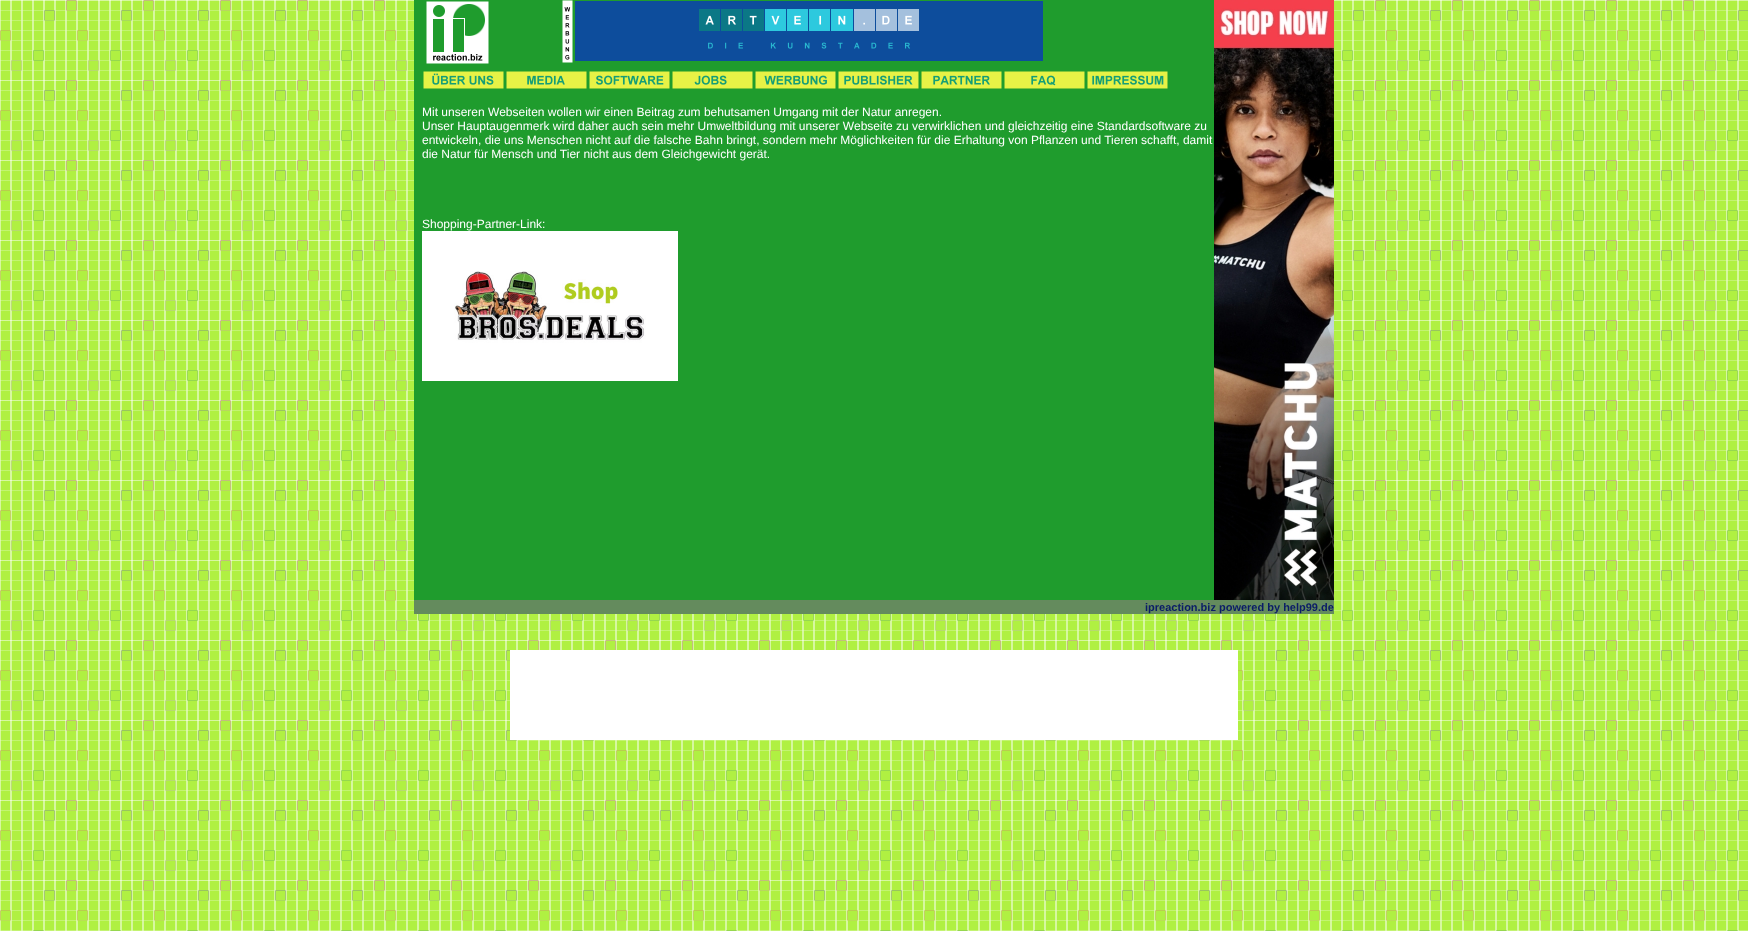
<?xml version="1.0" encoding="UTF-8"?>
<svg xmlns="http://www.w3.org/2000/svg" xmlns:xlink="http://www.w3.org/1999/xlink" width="1748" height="931">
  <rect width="100%" height="100%" fill="#ffffff" />
  <image x="0" y="0" width="1748" height="931" xlink:href="image1.png" />
  <image x="414" y="0" width="800" height="600" xlink:href="image2.png" />
  <image x="575" y="1" width="468" height="60" xlink:href="image3.png" />
  <image x="422" y="231" width="256" height="150" xlink:href="image4.png" />
  <image x="1214" y="0" width="120" height="600" xlink:href="image5.png" />
  <rect x="414" y="600" width="920" height="14" fill="#648b5d" />
  <rect x="510" y="650" width="728" height="90" fill="#ffffff" />
  <text x="422" y="116" style="font-family: Liberation Sans; font-size: 12px; fill: #ffffff">Mit unseren Webseiten wollen wir einen Beitrag zum behutsamen Umgang mit der Natur anregen.</text>
  <text x="422" y="130" style="font-family: Liberation Sans; font-size: 12px; fill: #ffffff">Unser Hauptaugenmerk wird daher auch sein mehr Umweltbildung mit unserer Webseite zu verwirklichen und gleichzeitig eine Standardsoftware zu</text>
  <text x="422" y="144" style="font-family: Liberation Sans; font-size: 12px; fill: #ffffff">entwickeln, die uns Menschen nicht auf die falsche Bahn bringt, sondern mehr Möglichkeiten für die Erhaltung von Pflanzen und Tieren schafft, damit</text>
  <text x="422" y="158" style="font-family: Liberation Sans; font-size: 12px; fill: #ffffff">die Natur für Mensch und Tier nicht aus dem Gleichgewicht gerät.</text>
  <text x="422" y="228" style="font-family: Liberation Sans; font-size: 12px; fill: #ffffff">Shopping-Partner-Link:</text>
  <text x="1145" y="611" style="font-family: Liberation Sans; font-size: 11px; font-weight: bold; fill: #0b1c67">ipreaction.biz powered by help99.de</text>
</svg>
